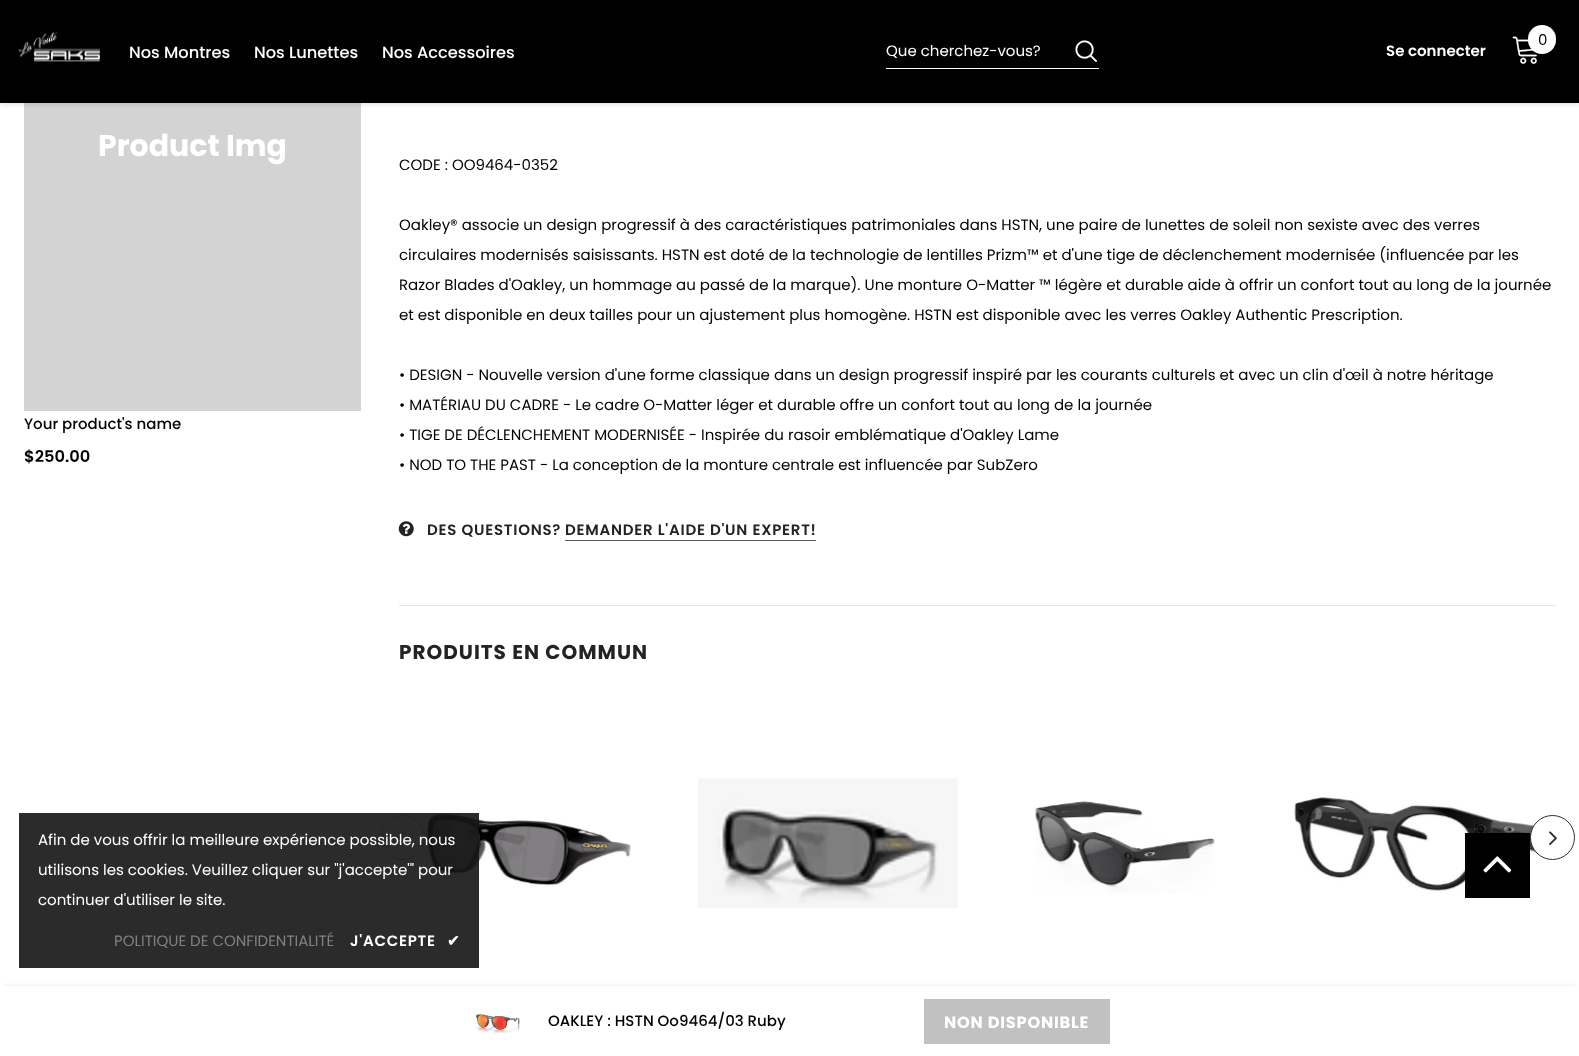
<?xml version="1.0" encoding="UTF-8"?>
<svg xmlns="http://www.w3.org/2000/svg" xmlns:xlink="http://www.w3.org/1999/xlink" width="1579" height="1056">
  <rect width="100%" height="100%" fill="#ffffff" />
  <rect x="24" y="103" width="337" height="308" fill="#d3d3d3" />
  <rect y="3" width="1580" height="102" fill="#000000" fill-opacity="0.1" filter="blur(2px)" />
  <rect width="1579" height="103" fill="#000000" />
  <image x="18" y="32" width="82" height="30" xlink:href="image1.png" />
  <image x="1512" y="36" width="25" height="28" xlink:href="image2.png" />
  <rect x="1528" y="25" width="28" height="29" rx="14" fill="#ffffff" />
  <rect x="886" y="68" width="213" height="1" fill="#ffffff" />
  <image x="1075" y="40" width="22" height="22" xlink:href="image3.png" />
  <image x="398" y="521" width="16" height="16" xlink:href="image4.png" />
  <rect x="565" y="540" width="251" height="1" fill="#5a5a5a" />
  <rect x="399" y="605" width="1157" height="1" fill="#e6e6e6" />
  <circle cx="402.5" cy="837.5" r="22" fill="none" stroke="#adadad" />
  <image x="398" y="831" width="9" height="14" xlink:href="image5.png" />
  <image x="427" y="813" width="204" height="73" xlink:href="image6.png" />
  <image x="698" y="778" width="260" height="130" xlink:href="image7.png" />
  <image x="1035" y="801" width="180" height="93" xlink:href="image8.png" />
  <image x="1294" y="797" width="263" height="94" xlink:href="image9.png" />
  <circle cx="1552.5" cy="837.5" r="22" fill="#ffffff" stroke="#323232" />
  <image x="1549" y="831" width="8" height="15" xlink:href="image10.png" />
  <rect x="19" y="813" width="460" height="155" fill="#141414" fill-opacity="0.9" />
  <rect x="4" y="986" width="1572" height="63" fill="#000000" fill-opacity="0.1" filter="blur(2px)" />
  <rect x="1" y="986" width="1578" height="66" fill="#ffffff" />
  <image x="475" y="1014" width="45" height="19" xlink:href="image11.png" />
  <rect x="924" y="999" width="186" height="45" fill="#c1c1c1" />
  <rect x="1465" y="833" width="65" height="65" fill="#000000" />
  <image x="1483" y="856" width="29" height="17" xlink:href="image12.png" />
  <text x="129" y="58" style="font-family: Poppins; font-size: 16.25px; font-weight: 500; fill: #ffffff">Nos Montres</text>
  <text x="254" y="58" style="font-family: Poppins; font-size: 16.25px; font-weight: 500; fill: #ffffff">Nos Lunettes</text>
  <text x="382" y="58" style="font-family: Poppins; font-size: 16.25px; font-weight: 500; fill: #ffffff">Nos Accessoires</text>
  <text x="1538" y="45" style="font-family: Poppins; font-size: 15px; fill: #020202">0</text>
  <text x="886" y="56" style="font-family: Poppins; font-size: 15px; fill: #ffffff">Que cherchez-vous?</text>
  <text x="1386" y="56" style="font-family: Poppins; font-size: 15px; font-weight: 600; fill: #ffffff">Se connecter</text>
  <text x="98" y="156" style="font-family: Poppins; font-size: 30px; font-weight: bold; fill: #ffffff">Product Img</text>
  <text x="24" y="429" style="font-family: Poppins; font-size: 15px; font-weight: 500; fill: #020202">Your product's name</text>
  <text x="24" y="462" style="font-family: Poppins; font-size: 16.25px; font-weight: 600; fill: #020202">$250.00</text>
  <text x="399" y="170" style="font-family: Poppins; font-size: 15px; fill: #020202">CODE : OO9464-0352</text>
  <text x="399" y="230" style="font-family: Poppins; font-size: 15px; fill: #020202">Oakley® associe un design progressif à des caractéristiques patrimoniales dans HSTN, une paire de lunettes de soleil non sexiste avec des verres</text>
  <text x="399" y="260" style="font-family: Poppins; font-size: 15px; fill: #020202">circulaires modernisés saisissants. HSTN est doté de la technologie de lentilles Prizm™ et d'une tige de déclenchement modernisée (influencée par les</text>
  <text x="399" y="290" style="font-family: Poppins; font-size: 15px; fill: #020202">Razor Blades d'Oakley, un hommage au passé de la marque). Une monture O-Matter ™ légère et durable aide à offrir un confort tout au long de la journée</text>
  <text x="399" y="320" style="font-family: Poppins; font-size: 15px; fill: #020202">et est disponible en deux tailles pour un ajustement plus homogène. HSTN est disponible avec les verres Oakley Authentic Prescription.</text>
  <text x="399" y="380" style="font-family: Poppins; font-size: 15px; fill: #020202">• DESIGN - Nouvelle version d'une forme classique dans un design progressif inspiré par les courants culturels et avec un clin d'œil à notre héritage</text>
  <text x="399" y="410" style="font-family: Poppins; font-size: 15px; fill: #020202">• MATÉRIAU DU CADRE - Le cadre O-Matter léger et durable offre un confort tout au long de la journée</text>
  <text x="399" y="440" style="font-family: Poppins; font-size: 15px; fill: #020202">• TIGE DE DÉCLENCHEMENT MODERNISÉE - Inspirée du rasoir emblématique d'Oakley Lame</text>
  <text x="399" y="470" style="font-family: Poppins; font-size: 15px; fill: #020202">• NOD TO THE PAST - La conception de la monture centrale est influencée par SubZero</text>
  <text x="427" y="535" style="font-family: Poppins; font-size: 15px; font-weight: 600; letter-spacing: 0.75px; fill: #232323">DES QUESTIONS?</text>
  <text x="565" y="535" style="font-family: Poppins; font-size: 15px; font-weight: 600; letter-spacing: 0.75px; fill: #232323">DEMANDER L'AIDE D'UN EXPERT!</text>
  <text x="399" y="659" style="font-family: Poppins; font-size: 20px; font-weight: bold; letter-spacing: 1px; fill: #232323">PRODUITS EN COMMUN</text>
  <text x="38" y="845" style="font-family: Poppins; font-size: 15px; fill: #ffffff">Afin de vous offrir la meilleure expérience possible, nous</text>
  <text x="38" y="875" style="font-family: Poppins; font-size: 15px; fill: #ffffff">utilisons les cookies. Veuillez cliquer sur "j'accepte'" pour</text>
  <text x="38" y="905" style="font-family: Poppins; font-size: 15px; fill: #ffffff">continuer d'utiliser le site.</text>
  <text x="114" y="946" style="font-family: Poppins; font-size: 15px; fill: #818181">POLITIQUE DE CONFIDENTIALITÉ</text>
  <text x="350" y="946" style="font-family: Poppins; font-size: 15px; font-weight: 600; letter-spacing: 0.75px; fill: #ffffff">J'ACCEPTE</text>
  <text x="447" y="946" style="font-family: DejaVu Sans; font-size: 15px; font-weight: bold; letter-spacing: 0.75px; fill: #ffffff">✔</text>
  <text x="548" y="1026" style="font-family: Poppins; font-size: 15px; font-weight: 500; fill: #020202">OAKLEY : HSTN Oo9464/03 Ruby</text>
  <text x="944" y="1028" style="font-family: Poppins; font-size: 16.25px; font-weight: bold; letter-spacing: 0.75px; fill: #ffffff">NON DISPONIBLE</text>
</svg>
